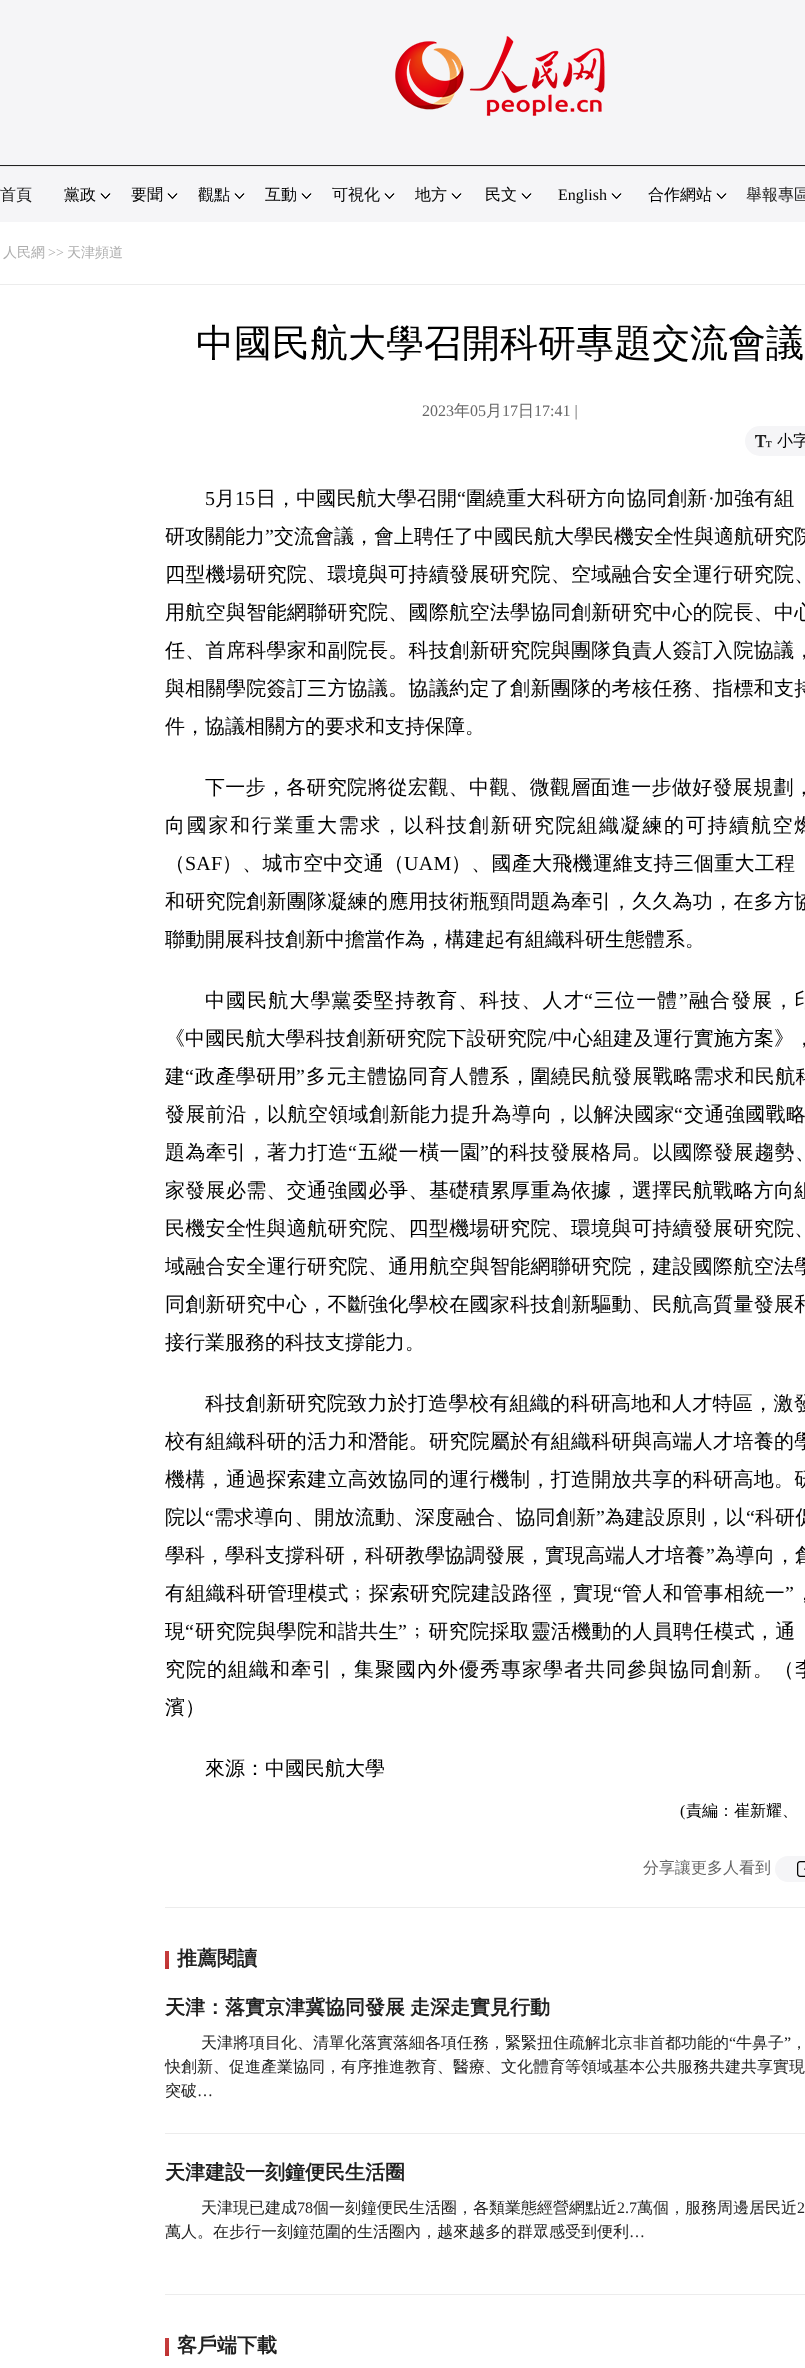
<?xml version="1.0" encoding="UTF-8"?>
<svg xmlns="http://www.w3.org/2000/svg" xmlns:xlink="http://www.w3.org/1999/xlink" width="805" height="2368">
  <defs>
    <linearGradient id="g1" gradientUnits="userSpaceOnUse" x1="162" y1="1955" x2="173" y2="1966"><stop offset="0" stop-color="#c53d3d" /><stop offset="0.49" stop-color="#c43a3a" /><stop offset="1" stop-color="#bb2d2d" /></linearGradient>
    <linearGradient id="g2" gradientUnits="userSpaceOnUse" x1="162" y1="2342" x2="173" y2="2353"><stop offset="0" stop-color="#c53d3d" /><stop offset="0.49" stop-color="#c43a3a" /><stop offset="1" stop-color="#bb2d2d" /></linearGradient>
  </defs>
  <rect width="100%" height="100%" fill="#ffffff" />
  <rect width="805" height="165" fill="#f5f5f7" />
  <rect y="165" width="805" height="1" fill="#212121" />
  <image x="395" y="36" width="210" height="80" xlink:href="image1.png" />
  <rect y="166" width="805" height="1" fill="#e9e9e9" />
  <rect y="167" width="805" height="55" fill="#f5f5f7" />
  <image x="100" y="193" width="11" height="6" xlink:href="image2.png" />
  <image x="167" y="193" width="11" height="6" xlink:href="image2.png" />
  <image x="234" y="193" width="11" height="6" xlink:href="image2.png" />
  <image x="301" y="193" width="11" height="6" xlink:href="image2.png" />
  <image x="384" y="193" width="11" height="6" xlink:href="image2.png" />
  <image x="451" y="193" width="11" height="6" xlink:href="image2.png" />
  <image x="521" y="193" width="11" height="6" xlink:href="image2.png" />
  <image x="611" y="193" width="11" height="6" xlink:href="image2.png" />
  <image x="716" y="193" width="11" height="6" xlink:href="image2.png" />
  <rect y="284" width="805" height="1" fill="#ececec" />
  <rect x="745" y="426" width="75" height="30" rx="15" fill="#f5f5f7" />
  <image x="755" y="435" width="17" height="13" xlink:href="image3.png" />
  <rect x="775" y="1856" width="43" height="26" rx="13" fill="#f5f5f7" />
  <image x="797" y="1861" width="8" height="16" xlink:href="image4.png" />
  <rect x="165" y="1907" width="640" height="1" fill="#ececec" />
  <rect x="165" y="1951" width="4" height="18" fill="url(#g1)" />
  <rect x="165" y="2133" width="640" height="1" fill="#ececec" />
  <rect x="165" y="2294" width="640" height="1" fill="#ececec" />
  <rect x="165" y="2338" width="4" height="18" fill="url(#g2)" />
  <text x="0" y="200" style="font-family: WenQuanYi Zen Hei; font-size: 16px; font-weight: 500; fill: #212121">首頁</text>
  <text x="64" y="200" style="font-family: WenQuanYi Zen Hei; font-size: 16px; font-weight: 500; fill: #000000">黨政</text>
  <text x="131" y="200" style="font-family: WenQuanYi Zen Hei; font-size: 16px; font-weight: 500; fill: #000000">要聞</text>
  <text x="198" y="200" style="font-family: WenQuanYi Zen Hei; font-size: 16px; font-weight: 500; fill: #000000">觀點</text>
  <text x="265" y="200" style="font-family: WenQuanYi Zen Hei; font-size: 16px; font-weight: 500; fill: #000000">互動</text>
  <text x="332" y="200" style="font-family: WenQuanYi Zen Hei; font-size: 16px; font-weight: 500; fill: #000000">可視化</text>
  <text x="415" y="200" style="font-family: WenQuanYi Zen Hei; font-size: 16px; font-weight: 500; fill: #000000">地方</text>
  <text x="485" y="200" style="font-family: WenQuanYi Zen Hei; font-size: 16px; font-weight: 500; fill: #000000">民文</text>
  <text x="558" y="200" style="font-family: Liberation Serif; font-size: 16px; fill: #000000">English</text>
  <text x="648" y="200" style="font-family: WenQuanYi Zen Hei; font-size: 16px; font-weight: 500; fill: #000000">合作網站</text>
  <text x="746" y="200" style="font-family: WenQuanYi Zen Hei; font-size: 16px; font-weight: 500; fill: #212121">舉報專區</text>
  <text x="3" y="257" style="font-family: WenQuanYi Zen Hei; font-size: 14px; font-weight: 500; fill: #adadad">人民網</text>
  <text x="48" y="257" style="font-family: Liberation Serif; font-size: 14px; fill: #adadad">&gt;&gt;</text>
  <text x="67" y="257" style="font-family: WenQuanYi Zen Hei; font-size: 14px; font-weight: 500; fill: #adadad">天津頻道</text>
  <text x="196" y="356" style="font-family: WenQuanYi Zen Hei; font-size: 38px; font-weight: 500; fill: #000000">中國民航大學召開科研專題交流會議</text>
  <text x="422" y="416" style="font-family: Liberation Serif; font-size: 16px; fill: #666666">2023</text>
  <text x="454" y="416" style="font-family: WenQuanYi Zen Hei; font-size: 16px; font-weight: 500; fill: #666666">年</text>
  <text x="470" y="416" style="font-family: Liberation Serif; font-size: 16px; fill: #666666">05</text>
  <text x="486" y="416" style="font-family: WenQuanYi Zen Hei; font-size: 16px; font-weight: 500; fill: #666666">月</text>
  <text x="502" y="416" style="font-family: Liberation Serif; font-size: 16px; fill: #666666">17</text>
  <text x="518" y="416" style="font-family: WenQuanYi Zen Hei; font-size: 16px; font-weight: 500; fill: #666666">日</text>
  <text x="534" y="416" style="font-family: Liberation Serif; font-size: 16px; fill: #666666">17:41 |</text>
  <text x="777" y="446" style="font-family: WenQuanYi Zen Hei; font-size: 16px; font-weight: 500; fill: #000000">小字</text>
  <text x="205" y="505" style="font-family: Liberation Serif; font-size: 20px; letter-spacing: 0.1px; fill: #000000">5</text>
  <text x="215" y="505" style="font-family: WenQuanYi Zen Hei; font-size: 20px; font-weight: 500; letter-spacing: 0.1px; fill: #000000">月</text>
  <text x="235" y="505" style="font-family: Liberation Serif; font-size: 20px; letter-spacing: 0.1px; fill: #000000">15</text>
  <text x="256" y="505" style="font-family: WenQuanYi Zen Hei; font-size: 20px; font-weight: 500; letter-spacing: 0.1px; fill: #000000">日，中國民航大學召開</text>
  <text x="457" y="505" style="font-family: Liberation Serif; font-size: 20px; letter-spacing: 0.1px; fill: #000000">“</text>
  <text x="466" y="505" style="font-family: WenQuanYi Zen Hei; font-size: 20px; font-weight: 500; letter-spacing: 0.1px; fill: #000000">圍繞重大科研方向協同創新</text>
  <text x="714" y="505" style="font-family: WenQuanYi Zen Hei; font-size: 20px; font-weight: 500; letter-spacing: 0.1px; fill: #000000">加強有組</text>
  <text x="708" y="505" style="font-family: Liberation Serif; font-size: 20px; letter-spacing: 0.1px; fill: #000000">·</text>
  <text x="165" y="543" style="font-family: WenQuanYi Zen Hei; font-size: 20px; font-weight: 500; fill: #000000">研攻關能力</text>
  <text x="265" y="543" style="font-family: Liberation Serif; font-size: 20px; fill: #000000">”</text>
  <text x="274" y="543" style="font-family: WenQuanYi Zen Hei; font-size: 20px; font-weight: 500; fill: #000000">交流會議，會上聘任了中國民航大學民機安全性與適航研究院</text>
  <text x="165" y="581" style="font-family: WenQuanYi Zen Hei; font-size: 20px; font-weight: 500; letter-spacing: 0.3px; fill: #000000">四型機場研究院、環境與可持續發展研究院、空域融合安全運行研究院、</text>
  <text x="165" y="619" style="font-family: WenQuanYi Zen Hei; font-size: 20px; font-weight: 500; letter-spacing: 0.3px; fill: #000000">用航空與智能網聯研究院、國際航空法學協同創新研究中心的院長、中心</text>
  <text x="165" y="657" style="font-family: WenQuanYi Zen Hei; font-size: 20px; font-weight: 500; letter-spacing: 0.3px; fill: #000000">任、首席科學家和副院長。科技創新研究院與團隊負責人簽訂入院協議，</text>
  <text x="165" y="695" style="font-family: WenQuanYi Zen Hei; font-size: 20px; font-weight: 500; letter-spacing: 0.3px; fill: #000000">與相關學院簽訂三方協議。協議約定了創新團隊的考核任務、指標和支持</text>
  <text x="165" y="733" style="font-family: WenQuanYi Zen Hei; font-size: 20px; font-weight: 500; fill: #000000">件，協議相關方的要求和支持保障。</text>
  <text x="205" y="794" style="font-family: WenQuanYi Zen Hei; font-size: 20px; font-weight: 500; letter-spacing: 0.3px; fill: #000000">下一步，各研究院將從宏觀、中觀、微觀層面進一步做好發展規劃，</text>
  <text x="165" y="832" style="font-family: WenQuanYi Zen Hei; font-size: 20px; font-weight: 500; letter-spacing: 1.7px; fill: #000000">向國家和行業重大需求，以科技創新研究院組織凝練的可持續航空燃</text>
  <text x="165" y="870" style="font-family: WenQuanYi Zen Hei; font-size: 20px; font-weight: 500; letter-spacing: 0.25px; fill: #000000">（</text>
  <text x="185" y="870" style="font-family: Liberation Serif; font-size: 20px; letter-spacing: 0.25px; fill: #000000">SAF</text>
  <text x="222" y="870" style="font-family: WenQuanYi Zen Hei; font-size: 20px; font-weight: 500; letter-spacing: 0.25px; fill: #000000">）、城市空中交通（</text>
  <text x="404" y="870" style="font-family: Liberation Serif; font-size: 20px; letter-spacing: 0.25px; fill: #000000">UAM</text>
  <text x="451" y="870" style="font-family: WenQuanYi Zen Hei; font-size: 20px; font-weight: 500; letter-spacing: 0.25px; fill: #000000">）、國產大飛機運維支持三個重大工程</text>
  <text x="165" y="908" style="font-family: WenQuanYi Zen Hei; font-size: 20px; font-weight: 500; letter-spacing: 0.3px; fill: #000000">和研究院創新團隊凝練的應用技術瓶頸問題為牽引，久久為功，在多方協</text>
  <text x="165" y="946" style="font-family: WenQuanYi Zen Hei; font-size: 20px; font-weight: 500; fill: #000000">聯動開展科技創新中擔當作為，構建起有組織科研生態體系。</text>
  <text x="205" y="1007" style="font-family: WenQuanYi Zen Hei; font-size: 20px; font-weight: 500; letter-spacing: 1.1px; fill: #000000">中國民航大學黨委堅持教育、科技、人才</text>
  <text x="584" y="1007" style="font-family: Liberation Serif; font-size: 20px; letter-spacing: 1.1px; fill: #000000">“</text>
  <text x="594" y="1007" style="font-family: WenQuanYi Zen Hei; font-size: 20px; font-weight: 500; letter-spacing: 1.1px; fill: #000000">三位一體</text>
  <text x="679" y="1007" style="font-family: Liberation Serif; font-size: 20px; letter-spacing: 1.1px; fill: #000000">”</text>
  <text x="689" y="1007" style="font-family: WenQuanYi Zen Hei; font-size: 20px; font-weight: 500; letter-spacing: 1.1px; fill: #000000">融合發展，印</text>
  <text x="165" y="1045" style="font-family: WenQuanYi Zen Hei; font-size: 20px; font-weight: 500; letter-spacing: 0.1px; fill: #000000">《中國民航大學科技創新研究院下設研究院</text>
  <text x="548" y="1045" style="font-family: Liberation Serif; font-size: 20px; letter-spacing: 0.1px; fill: #000000">/</text>
  <text x="553" y="1045" style="font-family: WenQuanYi Zen Hei; font-size: 20px; font-weight: 500; letter-spacing: 0.1px; fill: #000000">中心組建及運行實施方案》，</text>
  <text x="165" y="1083" style="font-family: WenQuanYi Zen Hei; font-size: 20px; font-weight: 500; letter-spacing: 0.4px; fill: #000000">建</text>
  <text x="185" y="1083" style="font-family: Liberation Serif; font-size: 20px; letter-spacing: 0.4px; fill: #000000">“</text>
  <text x="195" y="1083" style="font-family: WenQuanYi Zen Hei; font-size: 20px; font-weight: 500; letter-spacing: 0.4px; fill: #000000">政產學研用</text>
  <text x="296" y="1083" style="font-family: Liberation Serif; font-size: 20px; letter-spacing: 0.4px; fill: #000000">”</text>
  <text x="306" y="1083" style="font-family: WenQuanYi Zen Hei; font-size: 20px; font-weight: 500; letter-spacing: 0.4px; fill: #000000">多元主體協同育人體系，圍繞民航發展戰略需求和民航科</text>
  <text x="165" y="1121" style="font-family: WenQuanYi Zen Hei; font-size: 20px; font-weight: 500; letter-spacing: 0.4px; fill: #000000">發展前沿，以航空領域創新能力提升為導向，以解決國家</text>
  <text x="674" y="1121" style="font-family: Liberation Serif; font-size: 20px; letter-spacing: 0.4px; fill: #000000">“</text>
  <text x="684" y="1121" style="font-family: WenQuanYi Zen Hei; font-size: 20px; font-weight: 500; letter-spacing: 0.4px; fill: #000000">交通強國戰略</text>
  <text x="165" y="1159" style="font-family: WenQuanYi Zen Hei; font-size: 20px; font-weight: 500; letter-spacing: 0.4px; fill: #000000">題為牽引，著力打造</text>
  <text x="348" y="1159" style="font-family: Liberation Serif; font-size: 20px; letter-spacing: 0.4px; fill: #000000">“</text>
  <text x="358" y="1159" style="font-family: WenQuanYi Zen Hei; font-size: 20px; font-weight: 500; letter-spacing: 0.4px; fill: #000000">五縱一橫一園</text>
  <text x="480" y="1159" style="font-family: Liberation Serif; font-size: 20px; letter-spacing: 0.4px; fill: #000000">”</text>
  <text x="489" y="1159" style="font-family: WenQuanYi Zen Hei; font-size: 20px; font-weight: 500; letter-spacing: 0.4px; fill: #000000">的科技發展格局。以國際發展趨勢、</text>
  <text x="165" y="1197" style="font-family: WenQuanYi Zen Hei; font-size: 20px; font-weight: 500; letter-spacing: 0.3px; fill: #000000">家發展必需、交通強國必爭、基礎積累厚重為依據，選擇民航戰略方向組</text>
  <text x="165" y="1235" style="font-family: WenQuanYi Zen Hei; font-size: 20px; font-weight: 500; letter-spacing: 0.3px; fill: #000000">民機安全性與適航研究院、四型機場研究院、環境與可持續發展研究院、</text>
  <text x="165" y="1273" style="font-family: WenQuanYi Zen Hei; font-size: 20px; font-weight: 500; letter-spacing: 0.3px; fill: #000000">域融合安全運行研究院、通用航空與智能網聯研究院，建設國際航空法學</text>
  <text x="165" y="1311" style="font-family: WenQuanYi Zen Hei; font-size: 20px; font-weight: 500; letter-spacing: 0.3px; fill: #000000">同創新研究中心，不斷強化學校在國家科技創新驅動、民航高質量發展和</text>
  <text x="165" y="1349" style="font-family: WenQuanYi Zen Hei; font-size: 20px; font-weight: 500; fill: #000000">接行業服務的科技支撐能力。</text>
  <text x="205" y="1410" style="font-family: WenQuanYi Zen Hei; font-size: 20px; font-weight: 500; letter-spacing: 0.3px; fill: #000000">科技創新研究院致力於打造學校有組織的科研高地和人才特區，激發</text>
  <text x="165" y="1448" style="font-family: WenQuanYi Zen Hei; font-size: 20px; font-weight: 500; letter-spacing: 0.3px; fill: #000000">校有組織科研的活力和潛能。研究院屬於有組織科研與高端人才培養的學</text>
  <text x="165" y="1486" style="font-family: WenQuanYi Zen Hei; font-size: 20px; font-weight: 500; letter-spacing: 0.3px; fill: #000000">機構，通過探索建立高效協同的運行機制，打造開放共享的科研高地。研</text>
  <text x="165" y="1524" style="font-family: WenQuanYi Zen Hei; font-size: 20px; font-weight: 500; letter-spacing: 0.1px; fill: #000000">院以</text>
  <text x="205" y="1524" style="font-family: Liberation Serif; font-size: 20px; letter-spacing: 0.1px; fill: #000000">“</text>
  <text x="214" y="1524" style="font-family: WenQuanYi Zen Hei; font-size: 20px; font-weight: 500; letter-spacing: 0.1px; fill: #000000">需求導向、開放流動、深度融合、協同創新</text>
  <text x="596" y="1524" style="font-family: Liberation Serif; font-size: 20px; letter-spacing: 0.1px; fill: #000000">”</text>
  <text x="605" y="1524" style="font-family: WenQuanYi Zen Hei; font-size: 20px; font-weight: 500; letter-spacing: 0.1px; fill: #000000">為建設原則，以</text>
  <text x="746" y="1524" style="font-family: Liberation Serif; font-size: 20px; letter-spacing: 0.1px; fill: #000000">“</text>
  <text x="755" y="1524" style="font-family: WenQuanYi Zen Hei; font-size: 20px; font-weight: 500; letter-spacing: 0.1px; fill: #000000">科研促</text>
  <text x="165" y="1562" style="font-family: WenQuanYi Zen Hei; font-size: 20px; font-weight: 500; fill: #000000">學科，學科支撐科研，科研教學協調發展，實現高端人才培養</text>
  <text x="706" y="1562" style="font-family: Liberation Serif; font-size: 20px; fill: #000000">”</text>
  <text x="715" y="1562" style="font-family: WenQuanYi Zen Hei; font-size: 20px; font-weight: 500; fill: #000000">為導向，創</text>
  <text x="165" y="1600" style="font-family: WenQuanYi Zen Hei; font-size: 20px; font-weight: 500; letter-spacing: 0.4px; fill: #000000">有組織科研管理模式﹔探索研究院建設路徑，實現</text>
  <text x="613" y="1600" style="font-family: Liberation Serif; font-size: 20px; letter-spacing: 0.4px; fill: #000000">“</text>
  <text x="622" y="1600" style="font-family: WenQuanYi Zen Hei; font-size: 20px; font-weight: 500; letter-spacing: 0.4px; fill: #000000">管人和管事相統一</text>
  <text x="785" y="1600" style="font-family: Liberation Serif; font-size: 20px; letter-spacing: 0.4px; fill: #000000">”</text>
  <text x="795" y="1600" style="font-family: WenQuanYi Zen Hei; font-size: 20px; font-weight: 500; letter-spacing: 0.4px; fill: #000000">，</text>
  <text x="165" y="1638" style="font-family: WenQuanYi Zen Hei; font-size: 20px; font-weight: 500; letter-spacing: 0.4px; fill: #000000">現</text>
  <text x="185" y="1638" style="font-family: Liberation Serif; font-size: 20px; letter-spacing: 0.4px; fill: #000000">“</text>
  <text x="195" y="1638" style="font-family: WenQuanYi Zen Hei; font-size: 20px; font-weight: 500; letter-spacing: 0.4px; fill: #000000">研究院與學院和諧共生</text>
  <text x="398" y="1638" style="font-family: Liberation Serif; font-size: 20px; letter-spacing: 0.4px; fill: #000000">”</text>
  <text x="408" y="1638" style="font-family: WenQuanYi Zen Hei; font-size: 20px; font-weight: 500; letter-spacing: 0.4px; fill: #000000">﹔研究院採取靈活機動的人員聘任模式，通</text>
  <text x="165" y="1676" style="font-family: WenQuanYi Zen Hei; font-size: 20px; font-weight: 500; letter-spacing: 1px; fill: #000000">究院的組織和牽引，集聚國內外優秀專家學者共同參與協同創新。（李</text>
  <text x="165" y="1714" style="font-family: WenQuanYi Zen Hei; font-size: 20px; font-weight: 500; fill: #000000">濱）</text>
  <text x="205" y="1775" style="font-family: WenQuanYi Zen Hei; font-size: 20px; font-weight: 500; fill: #000000">來源：中國民航大學</text>
  <text x="680" y="1816" style="font-family: Liberation Serif; font-size: 16px; fill: #000000">(</text>
  <text x="686" y="1816" style="font-family: WenQuanYi Zen Hei; font-size: 16px; font-weight: 500; fill: #000000">責編：崔新耀、</text>
  <text x="643" y="1873" style="font-family: WenQuanYi Zen Hei; font-size: 16px; font-weight: 500; fill: #666666">分享讓更多人看到</text>
  <text x="177" y="1965" style="font-family: WenQuanYi Zen Hei; font-size: 20px; font-weight: bold; fill: #212121">推薦閱讀</text>
  <text x="165" y="2014" word-spacing="-1" style="font-family: WenQuanYi Zen Hei; font-size: 20px; font-weight: bold; fill: #212121">天津：落實京津冀協同發展 走深走實見行動</text>
  <text x="201" y="2048" style="font-family: WenQuanYi Zen Hei; font-size: 16px; font-weight: 500; fill: #212121">天津將項目化、清單化落實落細各項任務，緊緊扭住疏解北京非首都功能的</text>
  <text x="729" y="2048" style="font-family: Liberation Serif; font-size: 16px; fill: #212121">“</text>
  <text x="736" y="2048" style="font-family: WenQuanYi Zen Hei; font-size: 16px; font-weight: 500; fill: #212121">牛鼻子</text>
  <text x="784" y="2048" style="font-family: Liberation Serif; font-size: 16px; fill: #212121">”</text>
  <text x="791" y="2048" style="font-family: WenQuanYi Zen Hei; font-size: 16px; font-weight: 500; fill: #212121">，</text>
  <text x="165" y="2072" style="font-family: WenQuanYi Zen Hei; font-size: 16px; font-weight: 500; fill: #212121">快創新、促進產業協同，有序推進教育、醫療、文化體育等領域基本公共服務共建共享實現</text>
  <text x="165" y="2096" style="font-family: WenQuanYi Zen Hei; font-size: 16px; font-weight: 500; fill: #212121">突破</text>
  <text x="197" y="2096" style="font-family: Liberation Serif; font-size: 16px; fill: #212121">…</text>
  <text x="165" y="2179" style="font-family: WenQuanYi Zen Hei; font-size: 20px; font-weight: bold; fill: #212121">天津建設一刻鐘便民生活圈</text>
  <text x="201" y="2213" style="font-family: WenQuanYi Zen Hei; font-size: 16px; font-weight: 500; fill: #212121">天津現已建成</text>
  <text x="297" y="2213" style="font-family: Liberation Serif; font-size: 16px; fill: #212121">78</text>
  <text x="313" y="2213" style="font-family: WenQuanYi Zen Hei; font-size: 16px; font-weight: 500; fill: #212121">個一刻鐘便民生活圈，各類業態經營網點近</text>
  <text x="617" y="2213" style="font-family: Liberation Serif; font-size: 16px; fill: #212121">2.7</text>
  <text x="637" y="2213" style="font-family: WenQuanYi Zen Hei; font-size: 16px; font-weight: 500; fill: #212121">萬個，服務周邊居民近</text>
  <text x="797" y="2213" style="font-family: Liberation Serif; font-size: 16px; fill: #212121">2</text>
  <text x="165" y="2237" style="font-family: WenQuanYi Zen Hei; font-size: 16px; font-weight: 500; fill: #212121">萬人。在步行一刻鐘范圍的生活圈內，越來越多的群眾感受到便利</text>
  <text x="629" y="2237" style="font-family: Liberation Serif; font-size: 16px; fill: #212121">…</text>
  <text x="177" y="2352" style="font-family: WenQuanYi Zen Hei; font-size: 20px; font-weight: bold; fill: #212121">客戶端下載</text>
</svg>
